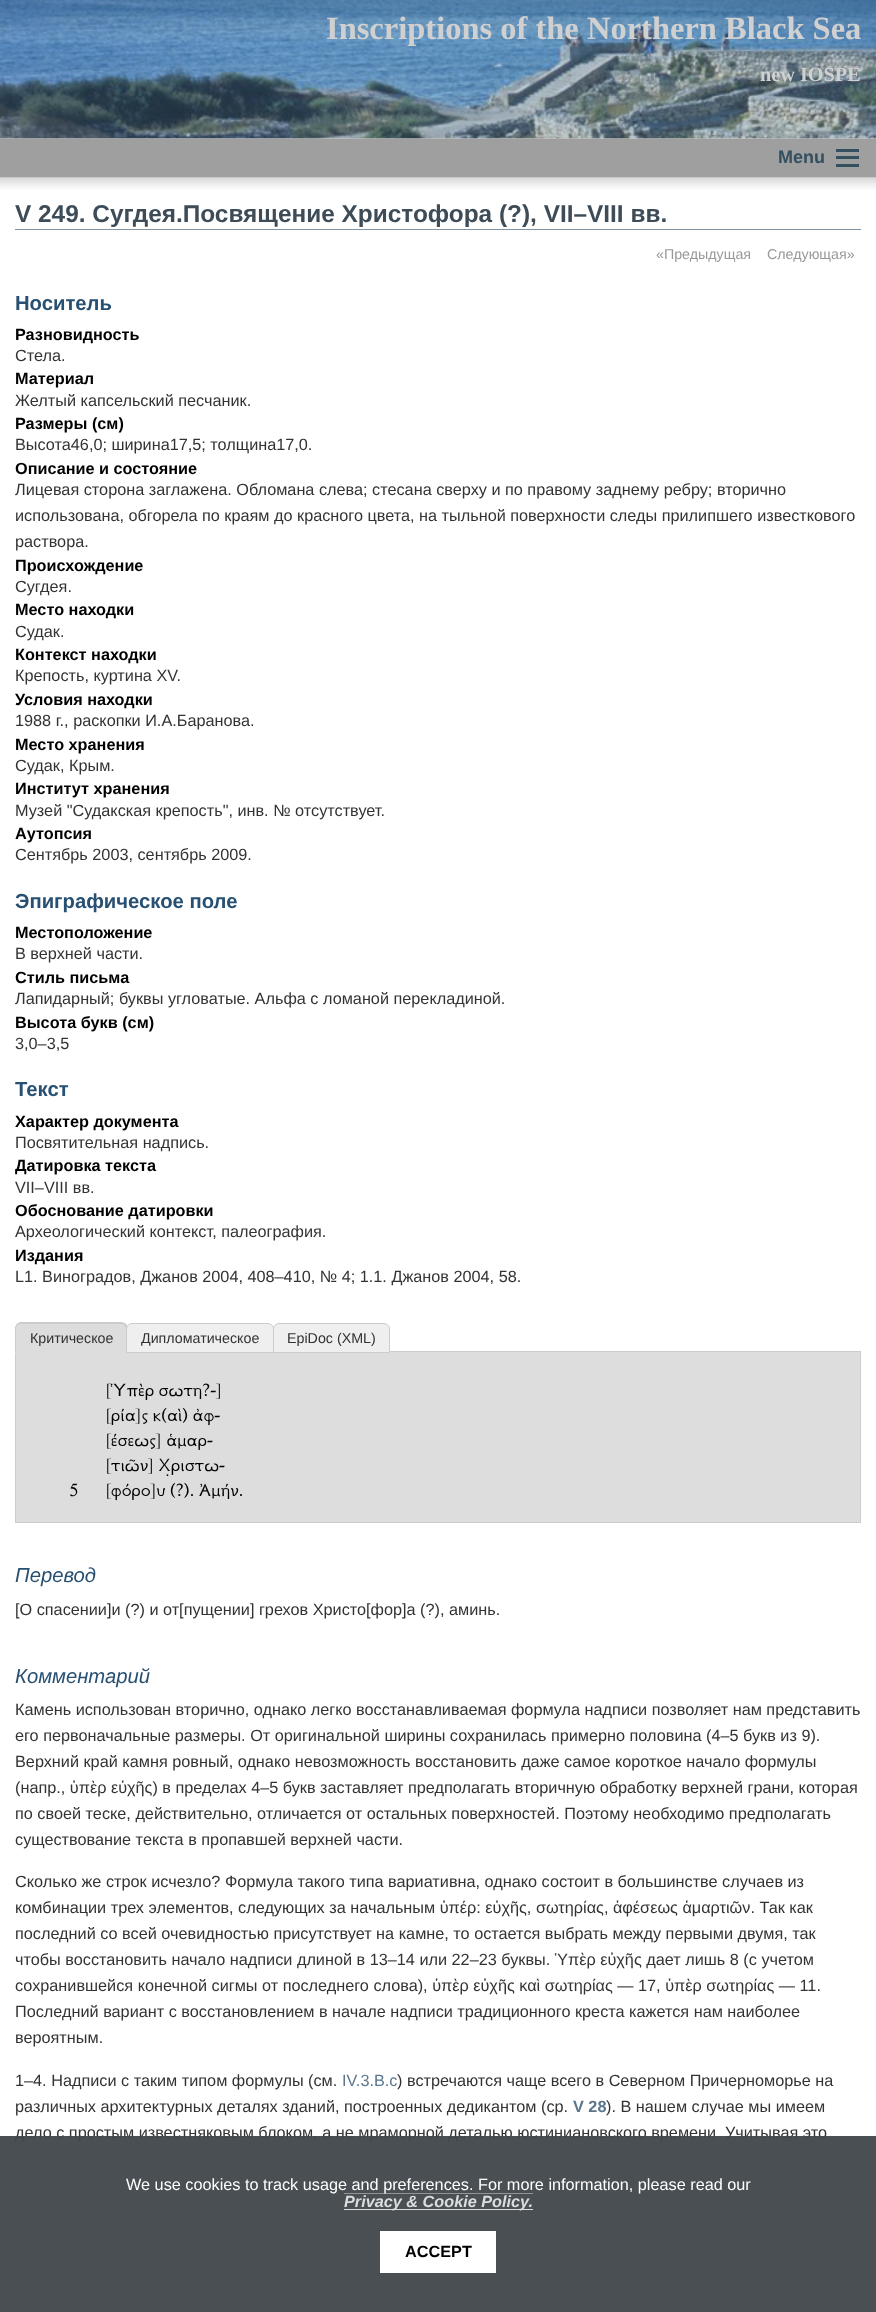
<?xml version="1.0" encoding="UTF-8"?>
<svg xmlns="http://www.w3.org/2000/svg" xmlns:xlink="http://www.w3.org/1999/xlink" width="876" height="2312">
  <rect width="100%" height="100%" fill="#ffffff" />
  <image x="0" y="0" width="876" height="139" xlink:href="image1.png" />
  <image x="0" y="138" width="876" height="52" xlink:href="image2.png" />
  <rect x="836" y="164" width="23" height="3" fill="#344f5f" />
  <rect x="836" y="156" width="23" height="3" fill="#344f5f" />
  <rect x="836" y="149" width="23" height="3" fill="#344f5f" />
  <rect x="15" y="229" width="846" height="1" fill="#8192a1" />
  <rect x="15.5" y="1351.5" width="845" height="171" fill="#dddddd" stroke="#cccccc" />
  <path d="M 21 1323 h 101 c 3.5 0 6 2.5 6 6 v 24 h -113 v -24 c 0 -3.5 2.5 -6 6 -6 z" fill="#dddddd" />
  <path d="M 21 1322 h 100 c 4 0 7 3 7 7 v 23 h -113 v -23 c 0 -4 3 -7 6 -7 z m 0 2 h 100 c 3 0 5 2 5 5 v 23 h -110 v -23 c 0 -3 2 -5 5 -5 z" fill="#cccccc" fill-rule="evenodd" />
  <path d="M 132 1323.5 h 136 c 3 0 5.5 2.5 5.5 5.5 v 23.5 h -147 v -23.5 c 0 -3 2.5 -5.5 5.5 -5.5 z" fill="#efefef" stroke="#cccccc" />
  <path d="M 279 1323.5 h 105 c 3 0 5.5 2.5 5.5 5.5 v 23.5 h -116 v -23.5 c 0 -3 2.5 -5.5 5.5 -5.5 z" fill="#efefef" stroke="#cccccc" />
  <text x="326" y="39" style="font-family: Liberation Serif; font-size: 32.5px; font-weight: bold; fill: #d0d0d0">Inscriptions of the Northern Black Sea</text>
  <text x="760" y="81" style="font-family: Liberation Serif; font-size: 20.25px; font-weight: bold; fill: #d0d0d0">new IOSPE</text>
  <text x="778" y="163" style="font-family: Liberation Sans; font-size: 18px; font-weight: bold; fill: #344f5f">Menu</text>
  <text x="15" y="222" style="font-family: Liberation Sans; font-size: 24.4px; font-weight: bold; fill: #3e4c58">V 249. Сугдея.Посвящение Христофора (?), VII–VIII вв.</text>
  <text x="656" y="259" style="font-family: Liberation Sans; font-size: 14.25px; fill: #999999">«Предыдущая</text>
  <text x="767" y="259" style="font-family: Liberation Sans; font-size: 14.25px; fill: #999999">Следующая»</text>
  <text x="15" y="310" style="font-family: Liberation Sans; font-size: 20.25px; font-weight: bold; fill: #285072">Носитель</text>
  <text x="15" y="340" style="font-family: Liberation Sans; font-size: 16.25px; font-weight: bold; fill: #000000">Разновидность</text>
  <text x="15" y="361" style="font-family: Liberation Sans; font-size: 16.25px; fill: #333333">Стела.</text>
  <text x="15" y="384" style="font-family: Liberation Sans; font-size: 16.25px; font-weight: bold; fill: #000000">Материал</text>
  <text x="15" y="406" style="font-family: Liberation Sans; font-size: 16.25px; fill: #333333">Желтый капсельский песчаник.</text>
  <text x="15" y="429" style="font-family: Liberation Sans; font-size: 16.25px; font-weight: bold; fill: #000000">Размеры (см)</text>
  <text x="15" y="450" style="font-family: Liberation Sans; font-size: 16.25px; fill: #333333">Высота46,0; ширина17,5; толщина17,0.</text>
  <text x="15" y="474" style="font-family: Liberation Sans; font-size: 16.25px; font-weight: bold; fill: #000000">Описание и состояние</text>
  <text x="15" y="495" style="font-family: Liberation Sans; font-size: 16.25px; fill: #333333">Лицевая сторона заглажена. Обломана слева; стесана сверху и по правому заднему ребру; вторично</text>
  <text x="15" y="521" style="font-family: Liberation Sans; font-size: 16.25px; fill: #333333">использована, обгорела по краям до красного цвета, на тыльной поверхности следы прилипшего известкового</text>
  <text x="15" y="547" style="font-family: Liberation Sans; font-size: 16.25px; fill: #333333">раствора.</text>
  <text x="15" y="571" style="font-family: Liberation Sans; font-size: 16.25px; font-weight: bold; fill: #000000">Происхождение</text>
  <text x="15" y="592" style="font-family: Liberation Sans; font-size: 16.25px; fill: #333333">Сугдея.</text>
  <text x="15" y="615" style="font-family: Liberation Sans; font-size: 16.25px; font-weight: bold; fill: #000000">Место находки</text>
  <text x="15" y="637" style="font-family: Liberation Sans; font-size: 16.25px; fill: #333333">Судак.</text>
  <text x="15" y="660" style="font-family: Liberation Sans; font-size: 16.25px; font-weight: bold; fill: #000000">Контекст находки</text>
  <text x="15" y="681" style="font-family: Liberation Sans; font-size: 16.25px; fill: #333333">Крепость, куртина XV.</text>
  <text x="15" y="705" style="font-family: Liberation Sans; font-size: 16.25px; font-weight: bold; fill: #000000">Условия находки</text>
  <text x="15" y="726" style="font-family: Liberation Sans; font-size: 16.25px; fill: #333333">1988 г., раскопки И.А.Баранова.</text>
  <text x="15" y="750" style="font-family: Liberation Sans; font-size: 16.25px; font-weight: bold; fill: #000000">Место хранения</text>
  <text x="15" y="771" style="font-family: Liberation Sans; font-size: 16.25px; fill: #333333">Судак, Крым.</text>
  <text x="15" y="794" style="font-family: Liberation Sans; font-size: 16.25px; font-weight: bold; fill: #000000">Институт хранения</text>
  <text x="15" y="816" style="font-family: Liberation Sans; font-size: 16.25px; fill: #333333">Музей "Судакская крепость", инв. № отсутствует.</text>
  <text x="15" y="839" style="font-family: Liberation Sans; font-size: 16.25px; font-weight: bold; fill: #000000">Аутопсия</text>
  <text x="15" y="860" style="font-family: Liberation Sans; font-size: 16.25px; fill: #333333">Cентябрь 2003, сентябрь 2009.</text>
  <text x="15" y="908" style="font-family: Liberation Sans; font-size: 20.25px; font-weight: bold; fill: #285072">Эпиграфическое поле</text>
  <text x="15" y="938" style="font-family: Liberation Sans; font-size: 16.25px; font-weight: bold; fill: #000000">Местоположение</text>
  <text x="15" y="959" style="font-family: Liberation Sans; font-size: 16.25px; fill: #333333">В верхней части.</text>
  <text x="15" y="983" style="font-family: Liberation Sans; font-size: 16.25px; font-weight: bold; fill: #000000">Стиль письма</text>
  <text x="15" y="1004" style="font-family: Liberation Sans; font-size: 16.25px; fill: #333333">Лапидарный; буквы угловатые. Альфа с ломаной перекладиной.</text>
  <text x="15" y="1028" style="font-family: Liberation Sans; font-size: 16.25px; font-weight: bold; fill: #000000">Высота букв (см)</text>
  <text x="15" y="1049" style="font-family: Liberation Sans; font-size: 16.25px; fill: #333333">3,0–3,5</text>
  <text x="15" y="1096" style="font-family: Liberation Sans; font-size: 20.25px; font-weight: bold; fill: #285072">Текст</text>
  <text x="15" y="1127" style="font-family: Liberation Sans; font-size: 16.25px; font-weight: bold; fill: #000000">Характер документа</text>
  <text x="15" y="1148" style="font-family: Liberation Sans; font-size: 16.25px; fill: #333333">Посвятительная надпись.</text>
  <text x="15" y="1171" style="font-family: Liberation Sans; font-size: 16.25px; font-weight: bold; fill: #000000">Датировка текста</text>
  <text x="15" y="1193" style="font-family: Liberation Sans; font-size: 16.25px; fill: #333333">VII–VIII вв.</text>
  <text x="15" y="1216" style="font-family: Liberation Sans; font-size: 16.25px; font-weight: bold; fill: #000000">Обоснование датировки</text>
  <text x="15" y="1237" style="font-family: Liberation Sans; font-size: 16.25px; fill: #333333">Археологический контекст, палеография.</text>
  <text x="15" y="1261" style="font-family: Liberation Sans; font-size: 16.25px; font-weight: bold; fill: #000000">Издания</text>
  <text x="15" y="1282" style="font-family: Liberation Sans; font-size: 16.25px; fill: #333333">L1. Виноградов, Джанов 2004, 408–410, № 4; 1.1. Джанов 2004, 58.</text>
  <text x="30" y="1343" style="font-family: Liberation Sans; font-size: 14.25px; fill: #333333">Критическое</text>
  <text x="105" y="1396" style="font-family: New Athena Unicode; font-size: 18px; fill: #000000">[Ὑπὲρ σωτη?-]</text>
  <text x="105" y="1421" style="font-family: New Athena Unicode; font-size: 18px; fill: #000000">[ρία]ς κ(αὶ) ἀφ-</text>
  <text x="105" y="1446" style="font-family: New Athena Unicode; font-size: 18px; fill: #000000">[έσεως] ἁμαρ-</text>
  <text x="105" y="1471" style="font-family: New Athena Unicode; font-size: 18px; fill: #000000">[τιῶν] Χ̣ριστω-</text>
  <text x="69" y="1496" style="font-family: New Athena Unicode; font-size: 18px; fill: #000000">5</text>
  <text x="105" y="1496" style="font-family: New Athena Unicode; font-size: 18px; fill: #000000">[φόρο]υ (?). Ἀμήν.</text>
  <text x="287" y="1343" style="font-family: Liberation Sans; font-size: 14.25px; fill: #333333">EpiDoc (XML)</text>
  <text x="141" y="1343" style="font-family: Liberation Sans; font-size: 14.25px; fill: #333333">Дипломатическое</text>
  <text x="15" y="1582" style="font-family: Liberation Sans; font-size: 20.25px; font-style: italic; fill: #285072">Перевод</text>
  <text x="15" y="1615" style="font-family: Liberation Sans; font-size: 16.25px; fill: #333333">[О спасении]и (?) и от[пущении] грехов Христо[фор]а (?), аминь.</text>
  <text x="15" y="1683" style="font-family: Liberation Sans; font-size: 20.25px; font-style: italic; fill: #285072">Комментарий</text>
  <text x="15" y="1715" style="font-family: Liberation Sans; font-size: 16.25px; fill: #333333">Камень использован вторично, однако легко восстанавливаемая формула надписи позволяет нам представить</text>
  <text x="15" y="1741" style="font-family: Liberation Sans; font-size: 16.25px; fill: #333333">его первоначальные размеры. От оригинальной ширины сохранилась примерно половина (4–5 букв из 9).</text>
  <text x="15" y="1767" style="font-family: Liberation Sans; font-size: 16.25px; fill: #333333">Верхний край камня ровный, однако невозможность восстановить даже самое короткое начало формулы</text>
  <text x="15" y="1793" style="font-family: Liberation Sans; font-size: 16.25px; fill: #333333">(напр., ὑπὲρ εὐχῆς) в пределах 4–5 букв заставляет предполагать вторичную обработку верхней грани, которая</text>
  <text x="15" y="1819" style="font-family: Liberation Sans; font-size: 16.25px; fill: #333333">по своей теске, действительно, отличается от остальных поверхностей. Поэтому необходимо предполагать</text>
  <text x="15" y="1845" style="font-family: Liberation Sans; font-size: 16.25px; fill: #333333">существование текста в пропавшей верхней части.</text>
  <text x="15" y="1887" style="font-family: Liberation Sans; font-size: 16.25px; fill: #333333">Сколько же строк исчезло? Формула такого типа вариативна, однако состоит в большинстве случаев из</text>
  <text x="15" y="1913" style="font-family: Liberation Sans; font-size: 16.25px; fill: #333333">комбинации трех элементов, следующих за начальным ὑπέρ: εὐχῆς, σωτηρίας, ἀφέσεως ἁμαρτιῶν. Так как</text>
  <text x="15" y="1939" style="font-family: Liberation Sans; font-size: 16.25px; fill: #333333">последний со всей очевидностью присутствует на камне, то остается выбрать между первыми двумя, так</text>
  <text x="15" y="1965" style="font-family: Liberation Sans; font-size: 16.25px; fill: #333333">чтобы восстановить начало надписи длиной в 13–14 или 22–23 буквы. Ὑπὲρ εὐχῆς дает лишь 8 (с учетом</text>
  <text x="15" y="1991" style="font-family: Liberation Sans; font-size: 16.25px; fill: #333333">сохранившейся конечной сигмы от последнего слова), ὑπὲρ εὐχῆς καὶ σωτηρίας — 17, ὑπὲρ σωτηρίας — 11.</text>
  <text x="15" y="2017" style="font-family: Liberation Sans; font-size: 16.25px; fill: #333333">Последний вариант с восстановлением в начале надписи традиционного креста кажется нам наиболее</text>
  <text x="15" y="2043" style="font-family: Liberation Sans; font-size: 16.25px; fill: #333333">вероятным.</text>
  <text x="15" y="2086" style="font-family: Liberation Sans; font-size: 16.25px; fill: #333333">1–4. Надписи с таким типом формулы (см.</text>
  <text x="342" y="2086" style="font-family: Liberation Sans; font-size: 16.25px; fill: #5a758c">IV.3.B.c</text>
  <text x="397" y="2086" style="font-family: Liberation Sans; font-size: 16.25px; fill: #333333">) встречаются чаще всего в Северном Причерноморье на</text>
  <text x="15" y="2112" style="font-family: Liberation Sans; font-size: 16.25px; fill: #333333">различных архитектурных деталях зданий, построенных дедикантом (ср.</text>
  <text x="573" y="2112" style="font-family: Liberation Sans; font-size: 16.25px; font-weight: bold; fill: #5a758c">V 28</text>
  <text x="606" y="2112" style="font-family: Liberation Sans; font-size: 16.25px; fill: #333333">). В нашем случае мы имеем</text>
  <text x="15" y="2138" style="font-family: Liberation Sans; font-size: 16.25px; fill: #333333">дело с простым известняковым блоком, а не мраморной деталью юстиниановского времени</text>
  <text x="725" y="2138" style="font-family: Liberation Sans; font-size: 16.25px; fill: #333333">Учитывая это</text>
  <rect y="2136" width="876" height="176" fill="#3f464a" fill-opacity="0.95" />
  <text x="126" y="2190" style="font-family: Liberation Sans; font-size: 16.25px; fill: #ffffff">We use cookies to track usage and preferences. For more information, please read our</text>
  <rect x="344" y="2193" width="189" height="1" fill="#ffffff" fill-opacity="0.4" />
  <rect x="344" y="2209" width="189" height="1" fill="#dbdcdd" />
  <text x="344" y="2207" style="font-family: Liberation Sans; font-size: 16.25px; font-weight: bold; font-style: italic; fill: #dbdcdd">Privacy &amp; Cookie Policy.</text>
  <rect x="380" y="2231" width="116" height="42" fill="#ffffff" />
  <text x="405" y="2257" style="font-family: Liberation Sans; font-size: 16.25px; font-weight: bold; fill: #000000">ACCEPT</text>
</svg>
